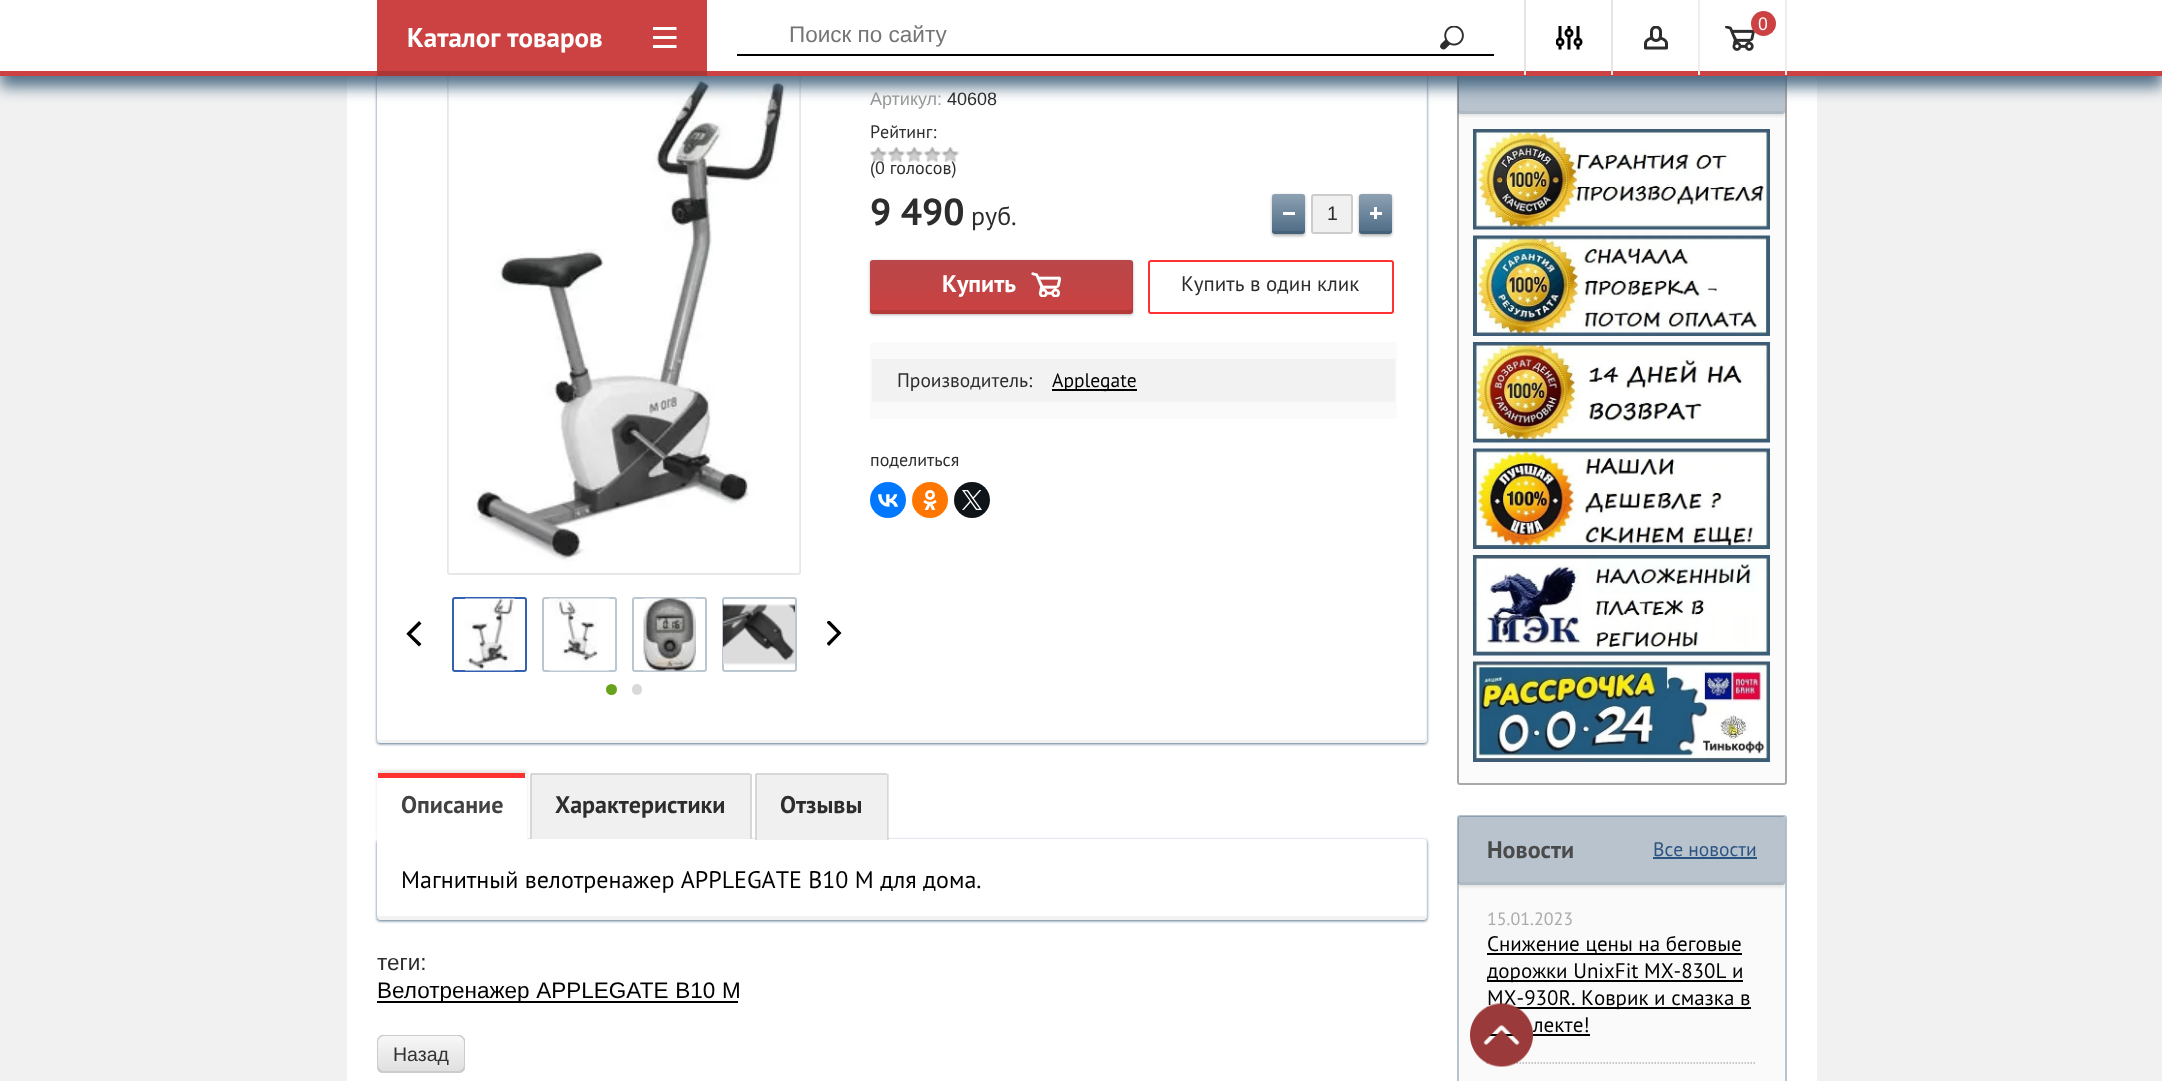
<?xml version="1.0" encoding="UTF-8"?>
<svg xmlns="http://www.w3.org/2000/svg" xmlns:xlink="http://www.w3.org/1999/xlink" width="2162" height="1081">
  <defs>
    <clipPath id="clip1"><path d="M 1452 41 h 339 v 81 h -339 z m 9 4 h 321 c 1.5 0 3 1.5 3 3 v 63 c 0 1.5 -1.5 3 -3 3 h -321 c -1.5 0 -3 -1.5 -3 -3 v -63 c 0 -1.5 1.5 -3 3 -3 z" clip-rule="evenodd" /></clipPath>
    <clipPath id="clip2"><rect x="827" y="621" width="15" height="26" /></clipPath>
    <clipPath id="clip3"><path d="M 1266 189 h 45 v 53 h -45 z m 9 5 h 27 c 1.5 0 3 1.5 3 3 v 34 c 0 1.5 -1.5 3 -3 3 h -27 c -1.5 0 -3 -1.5 -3 -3 v -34 c 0 -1.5 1.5 -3 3 -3 z" clip-rule="evenodd" /></clipPath>
    <linearGradient id="g1" gradientUnits="userSpaceOnUse" x1="1289" y1="234" x2="1289" y2="194"><stop offset="0" stop-color="#3b5d7a" stop-opacity="0.87" /><stop offset="1" stop-color="#3b5d7a" stop-opacity="0.35" /></linearGradient>
    <clipPath id="clip4"><path d="M 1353 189 h 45 v 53 h -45 z m 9 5 h 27 c 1.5 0 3 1.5 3 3 v 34 c 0 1.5 -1.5 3 -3 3 h -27 c -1.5 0 -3 -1.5 -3 -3 v -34 c 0 -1.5 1.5 -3 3 -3 z" clip-rule="evenodd" /></clipPath>
    <linearGradient id="g2" gradientUnits="userSpaceOnUse" x1="1376" y1="234" x2="1376" y2="194"><stop offset="0" stop-color="#3b5d7a" stop-opacity="0.87" /><stop offset="1" stop-color="#3b5d7a" stop-opacity="0.35" /></linearGradient>
    <linearGradient id="g3" gradientUnits="userSpaceOnUse" x1="1001" y1="314" x2="1001" y2="260"><stop offset="0" stop-color="#cc4141" /><stop offset="1" stop-color="#b94749" /></linearGradient>
    <linearGradient id="g4" gradientUnits="userSpaceOnUse" x1="421" y1="1035" x2="421" y2="1073"><stop offset="0" stop-color="#f8f8f8" /><stop offset="1" stop-color="#dfdfdf" /></linearGradient>
    <clipPath id="clip5"><path d="M 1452 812 h 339 v 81 h -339 z m 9 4 h 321 c 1.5 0 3 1.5 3 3 v 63 c 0 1.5 -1.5 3 -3 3 h -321 c -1.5 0 -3 -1.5 -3 -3 v -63 c 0 -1.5 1.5 -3 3 -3 z" clip-rule="evenodd" /></clipPath>
  </defs>
  <rect width="100%" height="100%" fill="#f1f1f1" />
  <rect x="347" y="76" width="1470" height="1005" fill="#ffffff" />
  <rect x="377" y="45" width="1050" height="699" rx="3" fill="#3b5d7a" fill-opacity="0.87" filter="blur(1.5px)" />
  <rect x="377" y="44" width="1050" height="699" rx="3" fill="#ffffff" />
  <path d="M 377 738 v 2 c 0 2 1 3 3 3 h 1044 c 2 0 3 -1 3 -3 v -693 c 0 -1 0 -2 -1 -2 v 691 c 0 2 -1 4 -2 4 h -1044 c -1 0 -2 -1 -3 -2 z" fill="#000000" fill-opacity="0.05" />
  <rect x="448" y="75" width="352" height="499" rx="2" fill="none" stroke="#e7e7e7" stroke-width="2" />
  <image x="448" y="76" width="352" height="497" xlink:href="image6.png" />
  <rect x="1458" y="45" width="328" height="739" rx="2" fill="#fbfbfb" stroke="#a9a9a9" stroke-width="2" />
  <g clip-path="url(#clip1)">
    <rect x="1458" y="47" width="327" height="69" rx="3" fill="#000000" fill-opacity="0.1" filter="blur(1.5px)" />
  </g>
  <rect x="1458" y="45" width="327" height="69" rx="3" fill="#3b5d7a" fill-opacity="0.35" />
  <path d="M 1458 108 v 3 c 0 2 1 3 3 3 h 321 c 2 0 3 -1 3 -3 v -3 c 0 2 -1 3 -3 3 h -321 c -2 0 -3 -1 -3 -3 z" fill="#000000" fill-opacity="0.05" />
  <rect y="12" width="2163" height="75" fill="#3b5d7a" fill-opacity="0.87" filter="blur(7.5px)" />
  <rect width="2162" height="71" fill="#ffffff" />
  <rect y="71" width="2162" height="5" fill="#cc4141" />
  <rect x="377" width="330" height="71" fill="#cc4141" />
  <rect x="377" y="71" width="330" height="5" fill="#ad3737" />
  <image x="653" y="27" width="24" height="21" xlink:href="image1.png" />
  <rect x="737" y="54" width="757" height="2" fill="#000000" />
  <image x="1440" y="26" width="24" height="24" xlink:href="image2.png" />
  <rect x="1785" width="2" height="75" fill="#eeeeee" />
  <rect x="1524" width="2" height="75" fill="#e5e5e5" />
  <image x="1556" y="26" width="27" height="24" xlink:href="image3.png" />
  <rect x="1611" width="2" height="75" fill="#e5e5e5" />
  <image x="1644" y="26" width="24" height="24" xlink:href="image4.png" />
  <rect x="1698" width="2" height="75" fill="#eeeeee" />
  <image x="1725" y="26" width="30" height="25" xlink:href="image5.png" />
  <circle cx="1763.5" cy="23.5" r="12.5" fill="#cc4141" />
  <rect x="453" y="598" width="73" height="73" rx="2" fill="none" stroke="#3360b2" stroke-width="2" />
  <image x="465" y="598" width="50" height="73" xlink:href="image7.png" />
  <rect x="543" y="598" width="73" height="73" rx="2" fill="none" stroke="#bac6d0" stroke-width="2" />
  <image x="549" y="598" width="60" height="73" xlink:href="image8.png" />
  <rect x="633" y="598" width="73" height="73" rx="2" fill="none" stroke="#bac6d0" stroke-width="2" />
  <image x="643" y="598" width="53" height="73" xlink:href="image9.png" />
  <rect x="723" y="598" width="73" height="73" rx="2" fill="none" stroke="#bac6d0" stroke-width="2" />
  <image x="723" y="604" width="72" height="61" xlink:href="image10.png" />
  <path d="M 419 621 l -12.5 12.5 v 0.5 l 12.5 12.5 l 2.5 -2.5 l -10.5 -10 l 10.5 -10.5 z" fill="#000000" />
  <g clip-path="url(#clip2)">
    <path d="M 829 646 l 12.5 -13 l -12.5 -13 l -2.5 2.5 l 10.5 10.5 l -10.5 10.5 z" fill="#000000" />
  </g>
  <circle cx="611.5" cy="689.5" r="5.5" fill="#68a31b" />
  <rect x="632" y="684" width="10" height="11" rx="5" fill="#d9d9d9" />
  <image x="870" y="147" width="90" height="15" xlink:href="image11.png" />
  <g clip-path="url(#clip3)">
    <rect x="1272" y="195" width="33" height="41" rx="3" fill="#000000" fill-opacity="0.29" filter="blur(1.5px)" />
  </g>
  <rect x="1272" y="194" width="33" height="40" rx="3" fill="#3b5d7a" fill-opacity="0.35" />
  <rect x="1272" y="194" width="33" height="40" rx="3" fill="url(#g1)" />
  <path d="M 1272 228 c 0 6.5 1 6 7.5 6 h 18 c 6.5 0 7.5 0.5 7.5 -6 c 0 2 -1 3 -3 3 h -27 c -2 0 -3 -1 -3 -3 z" fill="#000000" fill-opacity="0.11" />
  <rect x="1283" y="212" width="12" height="3" fill="#ffffff" />
  <rect x="1311" y="194" width="42" height="40" rx="3" fill="#f0f0f0" />
  <rect x="1312" y="195" width="40" height="38" rx="2" fill="none" stroke="#000000" stroke-opacity="0.15" stroke-width="2" />
  <g clip-path="url(#clip4)">
    <rect x="1359" y="195" width="33" height="41" rx="3" fill="#000000" fill-opacity="0.29" filter="blur(1.5px)" />
  </g>
  <rect x="1359" y="194" width="33" height="40" rx="3" fill="#3b5d7a" fill-opacity="0.35" />
  <rect x="1359" y="194" width="33" height="40" rx="3" fill="url(#g2)" />
  <path d="M 1359 228 c 0 6.5 1 6 7.5 6 h 18 c 6.5 0 7.5 0.5 7.5 -6 c 0 2 -1 3 -3 3 h -27 c -2 0 -3 -1 -3 -3 z" fill="#000000" fill-opacity="0.11" />
  <rect x="1370" y="212" width="12" height="3" fill="#ffffff" />
  <rect x="1374" y="207" width="3" height="12" fill="#ffffff" />
  <rect x="870" y="261" width="263" height="54" rx="3" fill="#000000" fill-opacity="0.29" filter="blur(1.5px)" />
  <rect x="870" y="260" width="263" height="54" rx="3" fill="url(#g3)" />
  <path d="M 870 308 v 3 c 0 2 1 3 3 3 h 257 c 2 0 3 -1 3 -3 v -48 c 0 -1 0 -2 -1 -2 v 47 c 0 1 -1 2 -2 2 h -257 c -2 0 -3 -1 -3 -2 z" fill="#000000" fill-opacity="0.11" />
  <image x="1031" y="272" width="30" height="25" xlink:href="image12.png" />
  <rect x="1149" y="261" width="244" height="52" rx="2" fill="none" stroke="#ff3131" stroke-width="2" />
  <rect x="870" y="342" width="527" height="77" rx="3" fill="#fafafa" />
  <rect x="872" y="359" width="523" height="43" fill="#f2f2f2" />
  <rect x="1052" y="389" width="85" height="2" fill="#000000" />
  <circle cx="888" cy="500" r="18" fill="#0077ff" />
  <image x="878" y="494" width="20" height="13" xlink:href="image13.png" />
  <circle cx="930" cy="500" r="18" fill="#ff7700" />
  <image x="923" y="490" width="14" height="20" xlink:href="image14.png" />
  <circle cx="972" cy="500" r="18" fill="#0f1419" />
  <image x="962" y="490" width="20" height="20" xlink:href="image15.png" />
  <rect x="377" y="840" width="1050" height="81" rx="3" fill="#3b5d7a" fill-opacity="0.87" filter="blur(1.5px)" />
  <path d="M 377 839 h 1047 c 1.5 0 3 1.5 3 3 v 75 c 0 1.5 -1.5 3 -3 3 h -1044 c -1.5 0 -3 -1.5 -3 -3 z" fill="#ffffff" />
  <path d="M 377 915 v 2 c 0 2 1 3 3 3 h 1044 c 2 0 3 -1 3 -3 v -75 c 0 -1 0 -2 -1 -2 v 74 c 0 1 -1 2 -2 2 h -1044 z" fill="#000000" fill-opacity="0.05" />
  <rect x="377" y="770" width="150" height="67" rx="3" fill="#000000" fill-opacity="0.1" filter="blur(1.5px)" />
  <path d="M 380 773 h 144 c 1.5 0 3 1.5 3 3 v 64 h -150 v -64 c 0 -1.5 1.5 -3 3 -3 z" fill="#ffffff" />
  <rect x="378" y="773" width="147" height="5" fill="#ff3131" />
  <path d="M 533 773 h 216 c 1.5 0 3 1.5 3 3 v 63 h -222 v -63 c 0 -1.5 1.5 -3 3 -3 z" fill="#f0f0f0" />
  <rect x="531" y="773" width="219" height="2" fill="#000000" fill-opacity="0.1" />
  <rect x="750" y="774" width="2" height="65" fill="#000000" fill-opacity="0.1" />
  <rect x="530" y="774" width="2" height="65" fill="#000000" fill-opacity="0.1" />
  <path d="M 758 773 h 127 c 1.5 0 3 1.5 3 3 v 64 h -133 v -64 c 0 -1.5 1.5 -3 3 -3 z" fill="#f0f0f0" />
  <rect x="756" y="773" width="131" height="2" fill="#000000" fill-opacity="0.1" />
  <rect x="887" y="774" width="2" height="66" fill="#000000" fill-opacity="0.1" />
  <rect x="755" y="774" width="2" height="66" fill="#000000" fill-opacity="0.1" />
  <rect x="377" y="1001" width="361" height="2" fill="#000000" />
  <rect x="377" y="1035" width="88" height="38" rx="6" fill="url(#g4)" />
  <path d="M 379 1037 c -1 1 -2 2 -2 4 v 26 c 0 3 3 6 6 6 h 76 c 3 0 5 -2 6 -4 c -1 1 -3 2 -5 2 h -76 c -3 0 -6 -3 -6 -6 v -25 c 0 -1 0 -3 1 -3 z" fill="#cccccc" />
  <path d="M 381 1036 h 77 c 3 0 6 3 6 6 v 26 c 0 1 -1 3 -2 4 c 2 -1 3 -3 3 -5 v -26 c 0 -3 -3 -6 -6 -6 h -76 c -1 0 -3 1 -4 1 z" fill="#cccccc" />
  <path d="M 378 1070 c 1 2 3 3 5 3 h 76 c 3 0 6 -3 6 -6 v -26 c 0 -2 -1 -3 -2 -4 c 1 0 1 2 1 3 v 25 c 0 3 -3 6 -6 6 h -77 c -1 0 -2 0 -3 -1 z" fill="#cccccc" />
  <path d="M 384 1036 h 76 c 1 0 3 0 3 1 c -1 -1 -2 -2 -4 -2 h -76 c -3 0 -6 3 -6 6 v 26 c 0 2 1 4 3 5 c -1 -1 -2 -3 -2 -4 v -26 c 0 -3 3 -6 6 -6 z" fill="#cccccc" />
  <image x="1473" y="129" width="297" height="101" xlink:href="image16.png" />
  <image x="1473" y="235" width="297" height="101" xlink:href="image17.png" />
  <image x="1473" y="342" width="297" height="101" xlink:href="image18.png" />
  <image x="1473" y="448" width="297" height="101" xlink:href="image19.png" />
  <image x="1473" y="555" width="297" height="101" xlink:href="image20.png" />
  <image x="1473" y="661" width="297" height="101" xlink:href="image21.png" />
  <rect x="1458" y="816" width="328" height="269" rx="2" fill="#fafafa" stroke="#b9c5ce" stroke-width="2" />
  <g clip-path="url(#clip5)">
    <rect x="1458" y="818" width="327" height="69" rx="3" fill="#000000" fill-opacity="0.1" filter="blur(1.5px)" />
  </g>
  <rect x="1458" y="816" width="327" height="69" rx="3" fill="#3b5d7a" fill-opacity="0.35" />
  <path d="M 1458 879 v 3 c 0 2 1 3 3 3 h 321 c 2 0 3 -1 3 -3 v -3 c 0 2 -1 3 -3 3 h -321 c -2 0 -3 -1 -3 -3 z" fill="#000000" fill-opacity="0.05" />
  <rect x="1653" y="857" width="104" height="2" fill="#2c5480" />
  <path d="M 1486.5 1063 h 270" fill="none" stroke="#b5b5b5" stroke-width="1.5" stroke-dasharray="1.5 1.5" />
  <rect x="1487" y="953" width="255" height="2" fill="#000000" />
  <rect x="1487" y="980" width="256" height="2" fill="#000000" />
  <rect x="1487" y="1007" width="264" height="2" fill="#000000" />
  <rect x="1487" y="1034" width="103" height="2" fill="#000000" />
  <text x="407" y="47" style="font-family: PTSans; font-size: 27px; font-weight: bold; fill: #ffffff">Каталог товаров</text>
  <text x="789" y="42" style="font-family: Liberation Sans; font-size: 22.5px; fill: #757575">Поиск по сайту</text>
  <text x="1758" y="30" style="font-family: PTSans; font-size: 18px; fill: #ffffff">0</text>
  <text x="870" y="105" style="font-family: Liberation Sans; font-size: 18px; fill: #999999">Артикул:</text>
  <text x="947" y="105" style="font-family: Liberation Sans; font-size: 18px; fill: #2d2d2d">40608</text>
  <text x="870" y="138" style="font-family: PTSans; font-size: 18px; fill: #2d2d2d">Рейтинг:</text>
  <text x="870" y="174" style="font-family: PTSans; font-size: 18px; fill: #2d2d2d">(0 голосов)</text>
  <text x="870" y="225" style="font-family: PTSans; font-size: 37.5px; font-weight: bold; fill: #2d2d2d">9 490</text>
  <text x="971" y="225" style="font-family: PTSans; font-size: 26px; fill: #2d2d2d">руб.</text>
  <text x="1327" y="220" style="font-family: Liberation Sans; font-size: 19.5px; fill: #2d2d2d">1</text>
  <text x="942" y="292" style="font-family: PTSans; font-size: 24px; font-weight: bold; fill: #ffffff">Купить</text>
  <text x="1181" y="291" style="font-family: PTSans; font-size: 21px; fill: #2d2d2d">Купить в один клик</text>
  <text x="897" y="387" style="font-family: PTSans; font-size: 19.5px; fill: #2d2d2d">Производитель:</text>
  <text x="1052" y="387" style="font-family: PTSans; font-size: 19.5px; fill: #000000">Applegate</text>
  <text x="870" y="466" style="font-family: PTSans; font-size: 18px; fill: #2d2d2d">поделиться</text>
  <text x="401" y="813" style="font-family: PTSans; font-size: 24px; font-weight: bold; fill: #424242">Описание</text>
  <text x="555" y="813" style="font-family: PTSans; font-size: 24px; font-weight: bold; fill: #2d2d2d">Характеристики</text>
  <text x="780" y="813" style="font-family: PTSans; font-size: 24px; font-weight: bold; fill: #2d2d2d">Отзывы</text>
  <text x="401" y="888" style="font-family: PTSans; font-size: 24px; fill: #000000">Магнитный велотренажер APPLEGATE B10 M для дома.</text>
  <text x="377" y="970" style="font-family: Liberation Sans; font-size: 22.5px; fill: #2d2d2d">теги:</text>
  <text x="377" y="998" word-spacing="0.5" style="font-family: Liberation Sans; font-size: 22.5px; fill: #000000">Велотренажер APPLEGATE B10 M</text>
  <text x="393" y="1061" style="font-family: Liberation Sans; font-size: 19.5px; fill: #333333">Назад</text>
  <text x="1487" y="858" style="font-family: PTSans; font-size: 24px; font-weight: bold; fill: #4a4a4a">Новости</text>
  <text x="1653" y="856" style="font-family: PTSans; font-size: 19.5px; fill: #2c5480">Все новости</text>
  <text x="1487" y="925" style="font-family: PTSans; font-size: 18px; fill: #ababab">15.01.2023</text>
  <text x="1487" y="951" style="font-family: PTSans; font-size: 21px; fill: #000000">Снижение цены на беговые</text>
  <text x="1487" y="978" style="font-family: PTSans; font-size: 21px; fill: #000000">дорожки UnixFit MX-830L и</text>
  <text x="1487" y="1005" style="font-family: PTSans; font-size: 21px; fill: #000000">MX-930R. Коврик и смазка в</text>
  <text x="1533" y="1032" style="font-family: PTSans; font-size: 21px; fill: #000000">лекте!</text>
  <image x="1470" y="1003" width="63" height="64" xlink:href="image22.png" />
</svg>
